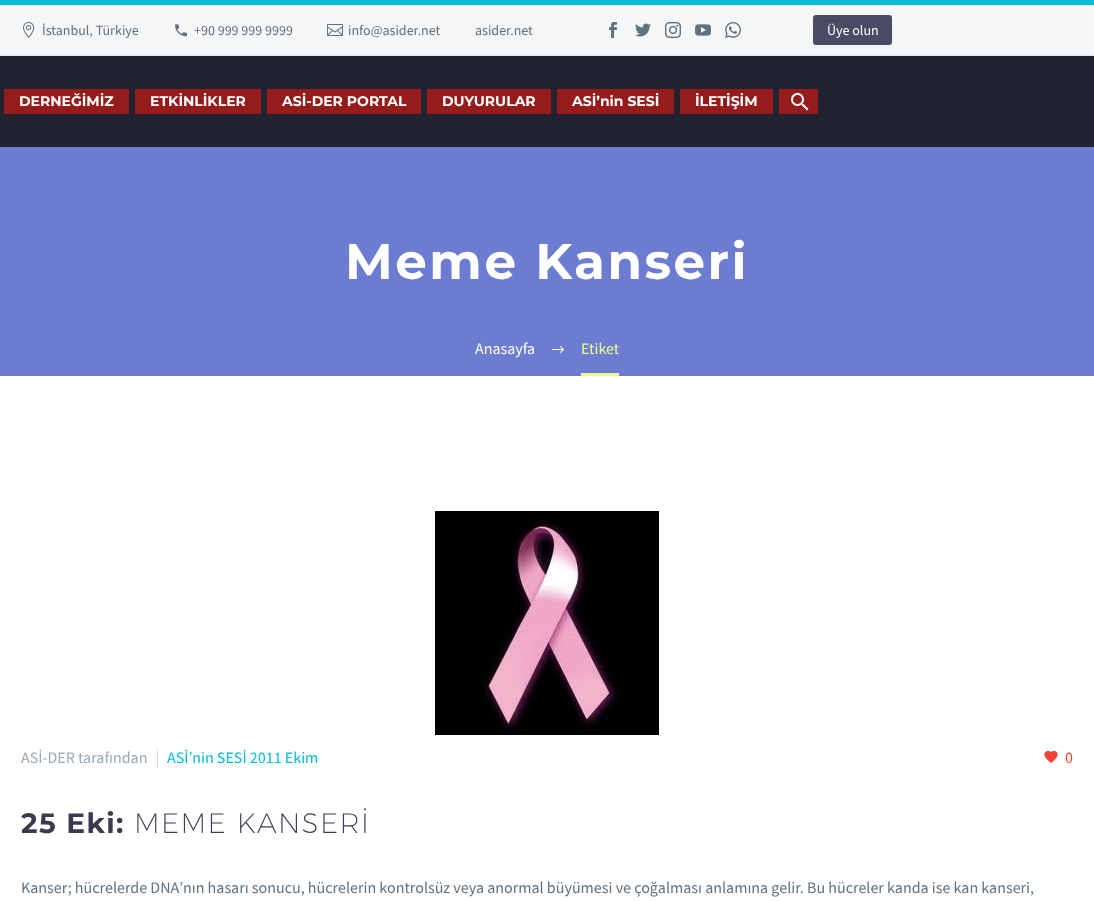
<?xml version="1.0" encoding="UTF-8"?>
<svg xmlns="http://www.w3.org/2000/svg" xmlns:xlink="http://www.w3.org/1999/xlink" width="1094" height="901">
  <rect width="100%" height="100%" fill="#212331" />
  <rect y="5" width="1094" height="50" fill="#f4f6f7" />
  <rect width="1094" height="5" fill="#00bcd4" />
  <rect y="55" width="1094" height="1" fill="#dfe5e8" />
  <image x="23" y="22" width="12" height="16" xlink:href="image1.png" />
  <image x="175" y="24" width="12" height="13" xlink:href="image2.png" />
  <image x="327" y="24" width="16" height="12" xlink:href="image3.png" />
  <image x="609" y="22" width="8" height="16" xlink:href="image4.png" />
  <image x="635" y="23" width="16" height="14" xlink:href="image5.png" />
  <image x="665" y="22" width="16" height="16" xlink:href="image6.png" />
  <image x="695" y="24" width="16" height="12" xlink:href="image7.png" />
  <image x="725" y="22" width="16" height="16" xlink:href="image8.png" />
  <rect x="813" y="15" width="79" height="30" rx="3" fill="#494c64" />
  <rect x="4" y="89" width="125" height="25" fill="#961c1c" />
  <rect x="135" y="89" width="126" height="25" fill="#961c1c" />
  <rect x="267" y="89" width="154" height="25" fill="#961c1c" />
  <rect x="427" y="89" width="124" height="25" fill="#961c1c" />
  <rect x="557" y="89" width="117" height="25" fill="#961c1c" />
  <rect x="680" y="89" width="93" height="25" fill="#961c1c" />
  <rect x="779" y="89" width="39" height="25" fill="#961c1c" />
  <image x="791" y="93" width="18" height="18" xlink:href="image9.png" />
  <rect y="147" width="1094" height="229" fill="#6c7cd0" />
  <image x="552" y="346" width="12" height="7" xlink:href="image10.png" />
  <rect x="581" y="373" width="38" height="3" fill="#e7ff89" />
  <rect y="376" width="1094" height="525" fill="#ffffff" />
  <image x="435" y="511" width="224" height="224" xlink:href="image11.png" />
  <rect x="157" y="749" width="1" height="20" fill="#d4dee1" />
  <image x="1044" y="750" width="14" height="13" xlink:href="image12.png" />
  <text x="42" y="35" style="font-family: Source Sans Pro; font-size: 14px; fill: #5f727f">İstanbul, Türkiye</text>
  <text x="194" y="35" style="font-family: Source Sans Pro; font-size: 14px; fill: #5f727f">+90 999 999 9999</text>
  <text x="348" y="35" style="font-family: Source Sans Pro; font-size: 14px; fill: #5f727f">info@asider.net</text>
  <text x="475" y="35" style="font-family: Source Sans Pro; font-size: 14px; fill: #5f727f">asider.net</text>
  <text x="827" y="35" style="font-family: Source Sans Pro; font-size: 14px; fill: #ffffff">Üye olun</text>
  <text x="19" y="106" style="font-family: Montserrat; font-size: 14px; font-weight: bold; fill: #ffffff">DERNEĞİMİZ</text>
  <text x="150" y="106" style="font-family: Montserrat; font-size: 14px; font-weight: bold; fill: #ffffff">ETKİNLİKLER</text>
  <text x="282" y="106" style="font-family: Montserrat; font-size: 14px; font-weight: bold; fill: #ffffff">ASİ-DER PORTAL</text>
  <text x="442" y="106" style="font-family: Montserrat; font-size: 14px; font-weight: bold; fill: #ffffff">DUYURULAR</text>
  <text x="572" y="106" style="font-family: Montserrat; font-size: 14px; font-weight: bold; fill: #ffffff">ASİ’nin SESİ</text>
  <text x="695" y="106" style="font-family: Montserrat; font-size: 14px; font-weight: bold; fill: #ffffff">İLETİŞİM</text>
  <text x="345" y="279" style="font-family: Montserrat; font-size: 50px; font-weight: bold; letter-spacing: 2.5px; fill: #ffffff">Meme Kanseri</text>
  <text x="475" y="354" style="font-family: Source Sans Pro; font-size: 16px; fill: #ffffff">Anasayfa</text>
  <text x="581" y="354" style="font-family: Source Sans Pro; font-size: 16px; fill: #e7ff89">Etiket</text>
  <text x="21" y="763" style="font-family: Source Sans Pro; font-size: 16px; fill: #99a9b5">ASİ-DER tarafından</text>
  <text x="167" y="763" style="font-family: Source Sans Pro; font-size: 16px; fill: #00bcd4">ASİ’nin SESİ 2011 Ekim</text>
  <text x="1065" y="763" style="font-family: Source Sans Pro; font-size: 16px; fill: #f44336">0</text>
  <text x="21" y="833" style="font-family: Montserrat; font-size: 28px; font-weight: bold; letter-spacing: 1.4px; fill: #3c3950">25 Eki:</text>
  <text x="134" y="833" style="font-family: Montserrat; font-size: 28px; font-weight: 200; letter-spacing: 1.4px; fill: #3c3950">MEME KANSERİ</text>
  <text x="21" y="893" style="font-family: Source Sans Pro; font-size: 16px; fill: #5f727f">Kanser; hücrelerde DNA’nın hasarı sonucu, hücrelerin kontrolsüz veya anormal büyümesi ve çoğalması anlamına gelir. Bu hücreler kanda ise kan kanseri,</text>
</svg>
